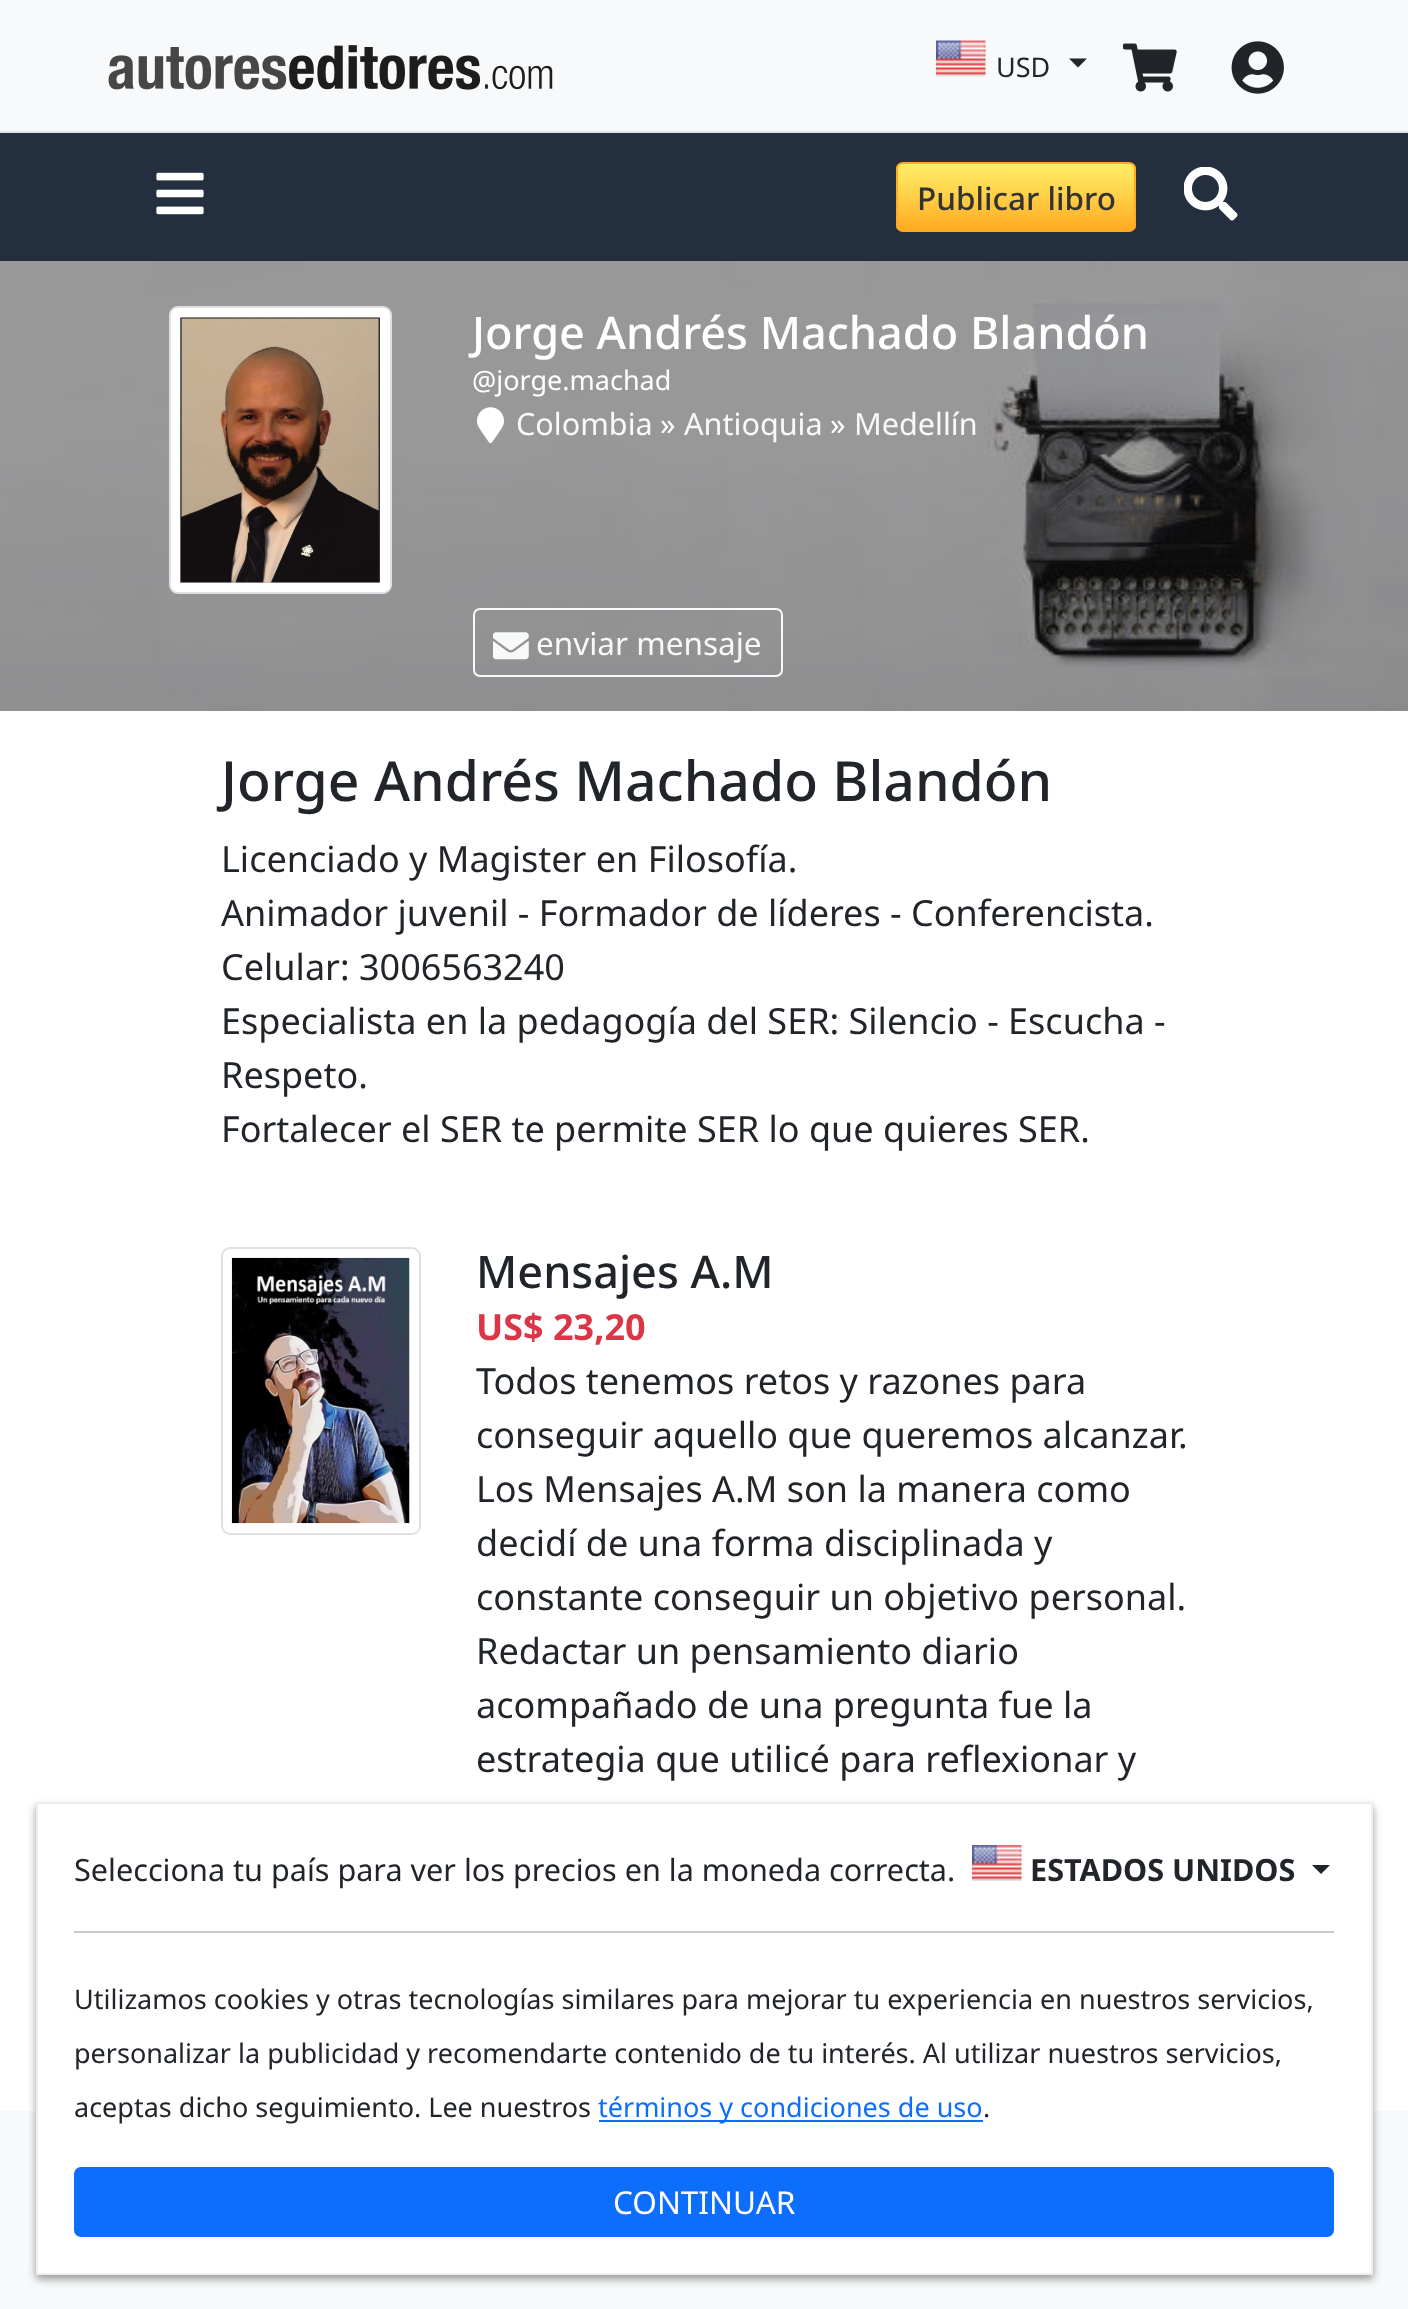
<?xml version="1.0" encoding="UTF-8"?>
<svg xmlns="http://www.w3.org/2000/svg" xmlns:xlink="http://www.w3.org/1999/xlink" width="1408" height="2309">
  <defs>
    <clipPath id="clip1"><rect x="896" y="162" width="240" height="70" rx="7" /></clipPath>
    <linearGradient id="g1" gradientUnits="userSpaceOnUse" x1="1016" y1="230" x2="1016" y2="164"><stop offset="0" stop-color="#ffaa22" /><stop offset="0.5" stop-color="#ffcf47" /><stop offset="1" stop-color="#ffee66" /></linearGradient>
  </defs>
  <rect width="100%" height="100%" fill="#ffffff" />
  <rect width="1408" height="131" fill="#f8f9fa" />
  <rect y="131" width="1408" height="2" fill="#dee2e6" />
  <image x="108" y="45" width="445" height="45" xlink:href="image1.png" />
  <image x="936" y="40" width="50" height="37" xlink:href="image2.png" />
  <path d="M 1069 58.5 h 18 l -9 9 z" fill="#212529" />
  <image x="1123" y="43" width="54" height="49" xlink:href="image3.png" />
  <image x="1231" y="41" width="53" height="53" xlink:href="image4.png" />
  <rect y="133" width="1408" height="128" fill="#232f3e" />
  <image x="156" y="172" width="48" height="43" xlink:href="image5.png" />
  <g clip-path="url(#clip1)">
    <rect x="896" y="164" width="240" height="66" fill="url(#g1)" />
  </g>
  <rect x="897" y="163" width="238" height="68" rx="6" fill="none" stroke="#ffaa22" stroke-width="2" />
  <image x="1184" y="167" width="54" height="54" xlink:href="image6.png" />
  <image x="0" y="261" width="1408" height="450" xlink:href="image7.png" />
  <rect x="170" y="307" width="221" height="286" rx="8" fill="#ffffff" stroke="#dee2e6" stroke-width="2" />
  <image x="180" y="317" width="200" height="266" xlink:href="image8.png" />
  <image x="477" y="407" width="27" height="36" xlink:href="image9.png" />
  <rect x="474" y="609" width="308" height="67" rx="6" fill="none" stroke="#f8f9fa" stroke-width="2" />
  <image x="493" y="632" width="36" height="28" xlink:href="image10.png" />
  <rect x="222" y="1248" width="198" height="286" rx="8" fill="none" stroke="#dee2e6" stroke-width="2" />
  <image x="231" y="1257" width="179" height="267" xlink:href="image11.png" />
  <rect y="2111" width="1408" height="198" fill="#f8f9fa" />
  <rect x="36" y="1807" width="1337" height="472" fill="#000000" fill-opacity="0.4" filter="blur(4.5px)" />
  <rect x="37" y="1803" width="1335" height="471" fill="#ffffff" stroke="#eeeeee" stroke-width="2" />
  <image x="972" y="1845" width="51" height="36" xlink:href="image12.png" />
  <path d="M 1312 1865 h 18 l -9 9 z" fill="#212529" />
  <rect x="74" y="1931" width="1260" height="2" fill="#c8c9ca" />
  <rect x="599" y="2120" width="384" height="2" fill="#0d6efd" />
  <rect x="75" y="2168" width="1258" height="68" rx="6" fill="#0d6efd" stroke="#0d6efd" stroke-width="2" />
  <text x="996" y="77" style="font-family: Noto Sans; font-size: 27px; fill: #212529">USD</text>
  <text x="917" y="210" style="font-family: Noto Sans; font-size: 31.5px; font-weight: 500; fill: #333333">Publicar libro</text>
  <text x="472" y="349" style="font-family: Noto Sans; font-size: 45px; font-weight: 500; fill: #ffffff">Jorge Andrés Machado Blandón</text>
  <text x="472" y="390" style="font-family: Noto Sans; font-size: 27px; fill: #ffffff">@jorge.machad</text>
  <text x="516" y="435" style="font-family: Noto Sans; font-size: 30.6px; fill: #f8f9fa">Colombia</text>
  <text x="660" y="435" style="font-family: Noto Sans; font-size: 30.6px; fill: #ffffff">»</text>
  <text x="684" y="435" style="font-family: Noto Sans; font-size: 30.6px; fill: #f8f9fa">Antioquia</text>
  <text x="830" y="435" style="font-family: Noto Sans; font-size: 30.6px; fill: #ffffff">»</text>
  <text x="854" y="435" style="font-family: Noto Sans; font-size: 30.6px; fill: #f8f9fa">Medellín</text>
  <text x="536" y="655" style="font-family: Noto Sans; font-size: 31.5px; fill: #f8f9fa">enviar mensaje</text>
  <text x="221" y="801" style="font-family: Noto Sans; font-size: 55.25px; font-weight: 500; fill: #212529">Jorge Andrés Machado Blandón</text>
  <text x="221" y="872" style="font-family: Noto Sans; font-size: 36px; fill: #212529">Licenciado y Magister en Filosofía.</text>
  <text x="221" y="926" style="font-family: Noto Sans; font-size: 36px; fill: #212529">Animador juvenil - Formador de líderes - Conferencista.</text>
  <text x="221" y="980" style="font-family: Noto Sans; font-size: 36px; fill: #212529">Celular: 3006563240</text>
  <text x="221" y="1034" style="font-family: Noto Sans; font-size: 36px; fill: #212529">Especialista en la pedagogía del SER: Silencio - Escucha -</text>
  <text x="221" y="1088" style="font-family: Noto Sans; font-size: 36px; fill: #212529">Respeto.</text>
  <text x="221" y="1142" style="font-family: Noto Sans; font-size: 36px; fill: #212529">Fortalecer el SER te permite SER lo que quieres SER.</text>
  <text x="476" y="1288" style="font-family: Noto Sans; font-size: 45px; font-weight: 500; fill: #212529">Mensajes A.M</text>
  <text x="476" y="1340" style="font-family: Noto Sans; font-size: 36px; font-weight: bold; fill: #dc3545">US$ 23,20</text>
  <text x="476" y="1394" style="font-family: Noto Sans; font-size: 36px; fill: #212529">Todos tenemos retos y razones para</text>
  <text x="476" y="1448" style="font-family: Noto Sans; font-size: 36px; fill: #212529">conseguir aquello que queremos alcanzar.</text>
  <text x="476" y="1502" style="font-family: Noto Sans; font-size: 36px; fill: #212529">Los Mensajes A.M son la manera como</text>
  <text x="476" y="1556" style="font-family: Noto Sans; font-size: 36px; fill: #212529">decidí de una forma disciplinada y</text>
  <text x="476" y="1610" style="font-family: Noto Sans; font-size: 36px; fill: #212529">constante conseguir un objetivo personal.</text>
  <text x="476" y="1664" style="font-family: Noto Sans; font-size: 36px; fill: #212529">Redactar un pensamiento diario</text>
  <text x="476" y="1718" style="font-family: Noto Sans; font-size: 36px; fill: #212529">acompañado de una pregunta fue la</text>
  <text x="476" y="1772" style="font-family: Noto Sans; font-size: 36px; fill: #212529">estrategia que utilicé para reflexionar y</text>
  <text x="74" y="1881" style="font-family: Noto Sans; font-size: 30.6px; fill: #212529">Selecciona tu país para ver los precios en la moneda correcta.</text>
  <text x="1030" y="1881" style="font-family: Noto Sans; font-size: 30.6px; font-weight: bold; fill: #212529">ESTADOS UNIDOS</text>
  <text x="74" y="2009" style="font-family: Noto Sans; font-size: 27px; fill: #212529">Utilizamos cookies y otras tecnologías similares para mejorar tu experiencia en nuestros servicios,</text>
  <text x="74" y="2063" style="font-family: Noto Sans; font-size: 27px; fill: #212529">personalizar la publicidad y recomendarte contenido de tu interés. Al utilizar nuestros servicios,</text>
  <text x="74" y="2117" style="font-family: Noto Sans; font-size: 27px; fill: #212529">aceptas dicho seguimiento. Lee nuestros</text>
  <text x="598" y="2117" style="font-family: Noto Sans; font-size: 27px; fill: #0d6efd">términos y condiciones de uso</text>
  <text x="983" y="2117" style="font-family: Noto Sans; font-size: 27px; fill: #212529">.</text>
  <text x="613" y="2214" style="font-family: Noto Sans; font-size: 31.5px; fill: #ffffff">CONTINUAR</text>
</svg>
